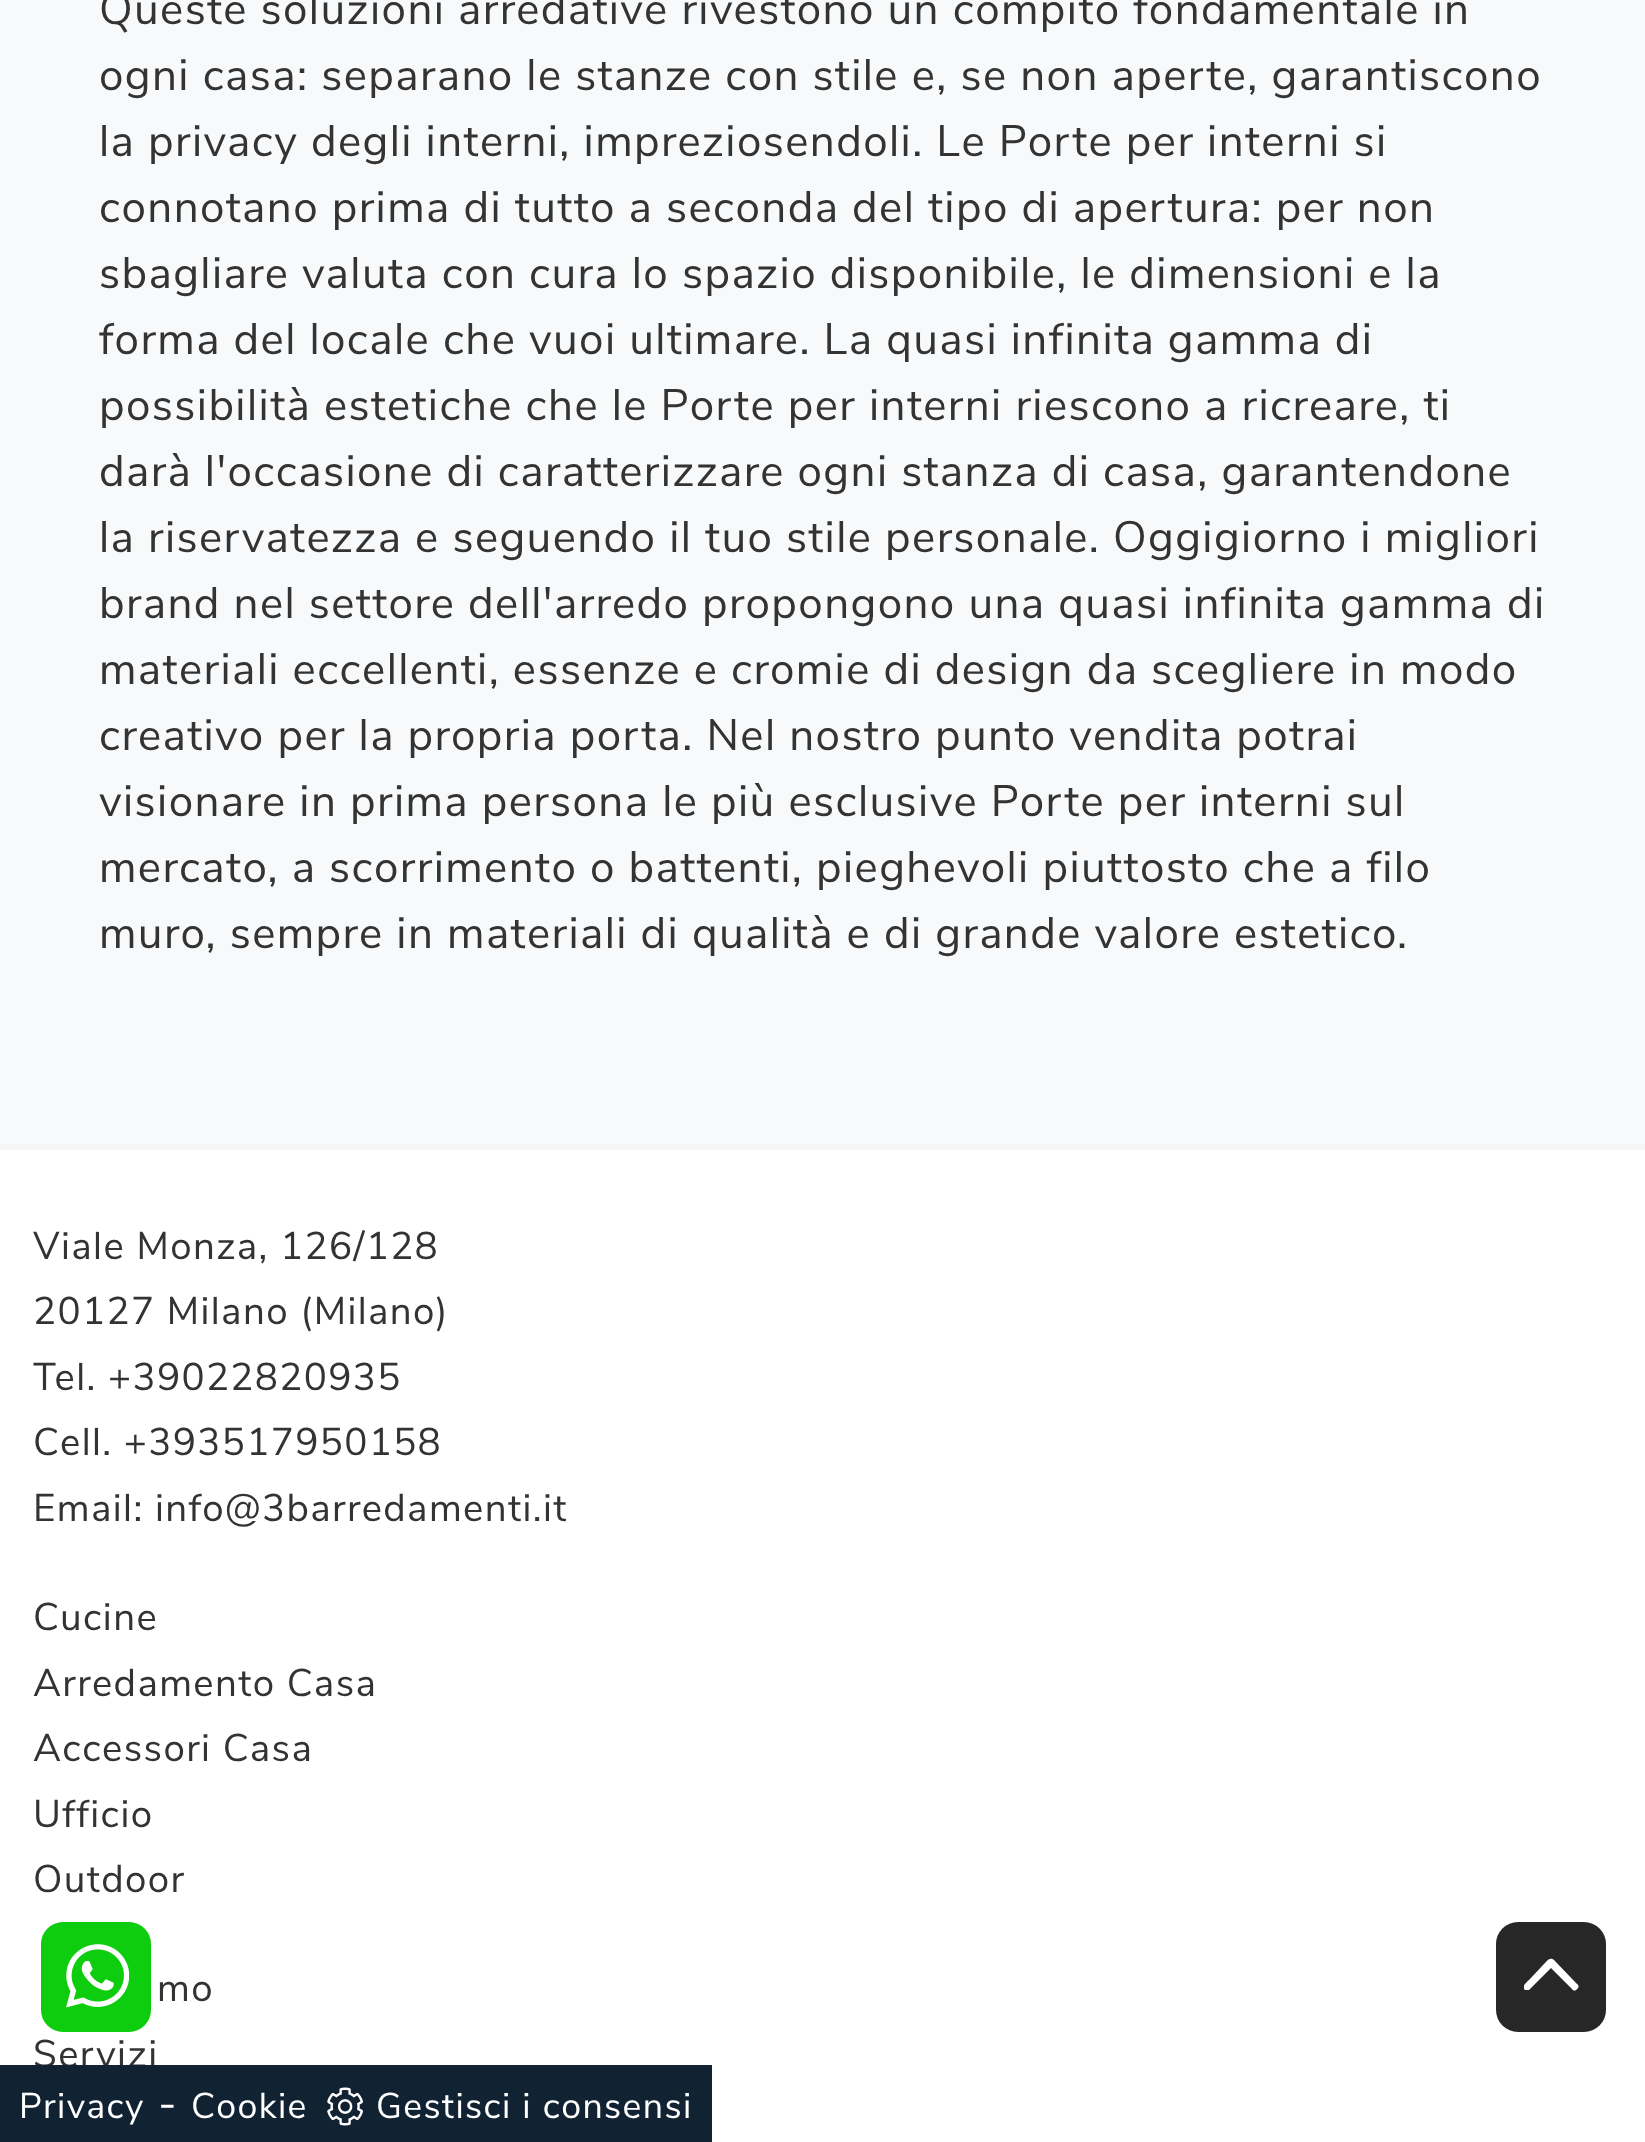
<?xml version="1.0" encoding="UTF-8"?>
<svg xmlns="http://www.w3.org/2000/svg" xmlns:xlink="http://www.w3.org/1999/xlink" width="1645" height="2142">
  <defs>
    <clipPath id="clip1"><rect x="1524" y="1947" width="55" height="55" /></clipPath>
  </defs>
  <rect width="100%" height="100%" fill="#ffffff" />
  <rect width="1645" height="1144" fill="#f8f9fa" />
  <rect y="1144" width="1645" height="6" fill="#f5f5f5" />
  <rect x="41" y="1922" width="110" height="110" rx="22" fill="#0ecc0e" />
  <image x="66" y="1944" width="63" height="64" xlink:href="image1.png" />
  <rect x="1496" y="1922" width="110" height="110" rx="22" fill="#272727" />
  <g clip-path="url(#clip1)">
    <path d="M 1554 1960 l 23 24 c 2 1 2 4 0 5 c -1 2 -4 2 -5 0 l -21 -21 l -22 22 c -1 0 -3 0 -4 0 c -4 -4 2 -8 4 -10 l 15 -16 c 2 -2 6 -8 10 -4 z" fill="#ffffff" />
  </g>
  <text x="99" y="24" style="font-family: Nunito Sans; font-size: 44px; letter-spacing: 1.38px; fill: #333333">Queste soluzioni arredative rivestono un compito fondamentale in</text>
  <text x="99" y="90" style="font-family: Nunito Sans; font-size: 44px; letter-spacing: 1.38px; fill: #333333">ogni casa: separano le stanze con stile e, se non aperte, garantiscono</text>
  <text x="99" y="156" style="font-family: Nunito Sans; font-size: 44px; letter-spacing: 1.38px; fill: #333333">la privacy degli interni, impreziosendoli. Le Porte per interni si</text>
  <text x="99" y="222" style="font-family: Nunito Sans; font-size: 44px; letter-spacing: 1.38px; fill: #333333">connotano prima di tutto a seconda del tipo di apertura: per non</text>
  <text x="99" y="288" style="font-family: Nunito Sans; font-size: 44px; letter-spacing: 1.38px; fill: #333333">sbagliare valuta con cura lo spazio disponibile, le dimensioni e la</text>
  <text x="99" y="354" style="font-family: Nunito Sans; font-size: 44px; letter-spacing: 1.38px; fill: #333333">forma del locale che vuoi ultimare. La quasi infinita gamma di</text>
  <text x="99" y="420" style="font-family: Nunito Sans; font-size: 44px; letter-spacing: 1.38px; fill: #333333">possibilità estetiche che le Porte per interni riescono a ricreare, ti</text>
  <text x="99" y="486" style="font-family: Nunito Sans; font-size: 44px; letter-spacing: 1.38px; fill: #333333">darà l'occasione di caratterizzare ogni stanza di casa, garantendone</text>
  <text x="99" y="552" style="font-family: Nunito Sans; font-size: 44px; letter-spacing: 1.38px; fill: #333333">la riservatezza e seguendo il tuo stile personale. Oggigiorno i migliori</text>
  <text x="99" y="618" style="font-family: Nunito Sans; font-size: 44px; letter-spacing: 1.38px; fill: #333333">brand nel settore dell'arredo propongono una quasi infinita gamma di</text>
  <text x="99" y="684" style="font-family: Nunito Sans; font-size: 44px; letter-spacing: 1.38px; fill: #333333">materiali eccellenti, essenze e cromie di design da scegliere in modo</text>
  <text x="99" y="750" style="font-family: Nunito Sans; font-size: 44px; letter-spacing: 1.38px; fill: #333333">creativo per la propria porta. Nel nostro punto vendita potrai</text>
  <text x="99" y="816" style="font-family: Nunito Sans; font-size: 44px; letter-spacing: 1.38px; fill: #333333">visionare in prima persona le più esclusive Porte per interni sul</text>
  <text x="99" y="882" style="font-family: Nunito Sans; font-size: 44px; letter-spacing: 1.38px; fill: #333333">mercato, a scorrimento o battenti, pieghevoli piuttosto che a filo</text>
  <text x="99" y="948" style="font-family: Nunito Sans; font-size: 44px; letter-spacing: 1.38px; fill: #333333">muro, sempre in materiali di qualità e di grande valore estetico.</text>
  <text x="33" y="1259" style="font-family: Nunito Sans; font-size: 38.5px; letter-spacing: 1.38px; fill: #333333">Viale Monza, 126/128</text>
  <text x="33" y="1324" style="font-family: Nunito Sans; font-size: 38.5px; letter-spacing: 1.38px; fill: #333333">20127 Milano (Milano)</text>
  <text x="33" y="1390" style="font-family: Nunito Sans; font-size: 38.5px; letter-spacing: 1.38px; fill: #333333">Tel. +39022820935</text>
  <text x="33" y="1455" style="font-family: Nunito Sans; font-size: 38.5px; letter-spacing: 1.38px; fill: #333333">Cell. +393517950158</text>
  <text x="33" y="1521" style="font-family: Nunito Sans; font-size: 38.5px; letter-spacing: 1.38px; fill: #333333">Email: info@3barredamenti.it</text>
  <text x="33" y="1630" style="font-family: Nunito Sans; font-size: 38.5px; letter-spacing: 1.38px; fill: #333333">Cucine</text>
  <text x="33" y="1696" style="font-family: Nunito Sans; font-size: 38.5px; letter-spacing: 1.38px; fill: #333333">Arredamento Casa</text>
  <text x="33" y="1761" style="font-family: Nunito Sans; font-size: 38.5px; letter-spacing: 1.38px; fill: #333333">Accessori Casa</text>
  <text x="33" y="1827" style="font-family: Nunito Sans; font-size: 38.5px; letter-spacing: 1.38px; fill: #333333">Ufficio</text>
  <text x="33" y="1892" style="font-family: Nunito Sans; font-size: 38.5px; letter-spacing: 1.38px; fill: #333333">Outdoor</text>
  <text x="157" y="2001" style="font-family: Nunito Sans; font-size: 38.5px; letter-spacing: 1.38px; fill: #333333">mo</text>
  <text x="33" y="2067" style="font-family: Nunito Sans; font-size: 38.5px; letter-spacing: 1.38px; fill: #333333">Servizi</text>
  <rect y="2065" width="712" height="77" fill="#112233" />
  <text x="19" y="2118" style="font-family: Nunito Sans; font-size: 35.75px; letter-spacing: 1.38px; fill: #ffffff">Privacy</text>
  <text x="158" y="2118" style="font-family: Nunito Sans; font-size: 44px; letter-spacing: 1.38px; fill: #ffffff">-</text>
  <text x="191" y="2118" style="font-family: Nunito Sans; font-size: 35.75px; letter-spacing: 1.38px; fill: #ffffff">Cookie</text>
  <image x="327" y="2087" width="36" height="39" xlink:href="image2.png" />
  <text x="376" y="2118" style="font-family: Nunito Sans; font-size: 35.75px; letter-spacing: 1.38px; fill: #ffffff">Gestisci i consensi</text>
</svg>
